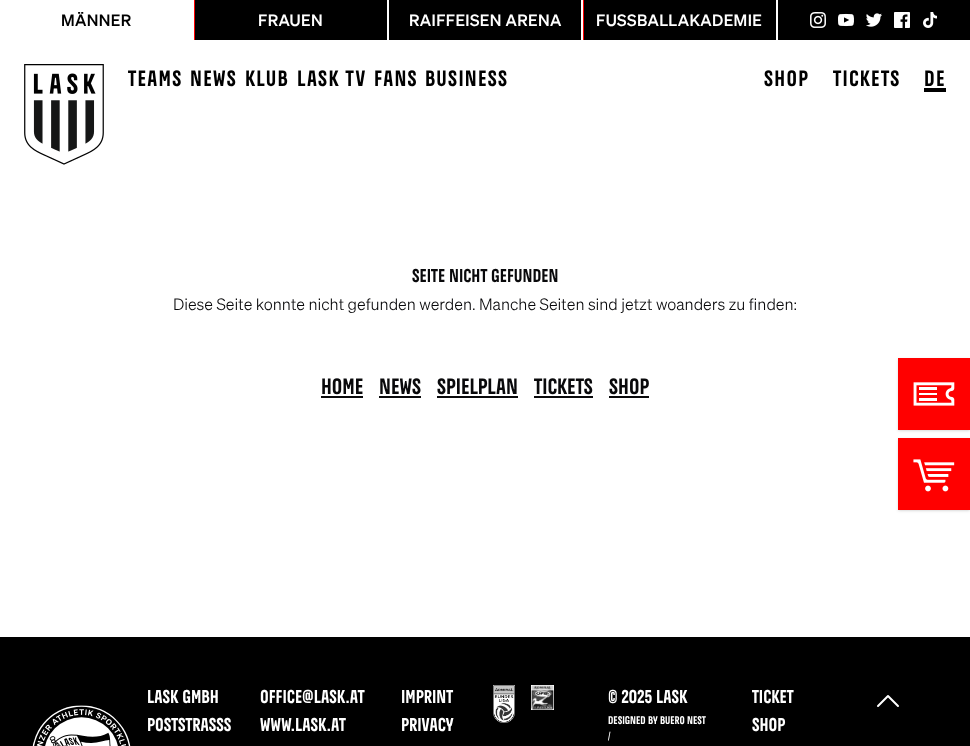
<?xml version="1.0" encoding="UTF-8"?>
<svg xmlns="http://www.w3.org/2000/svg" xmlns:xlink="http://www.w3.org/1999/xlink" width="970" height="746">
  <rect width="100%" height="100%" fill="#ffffff" />
  <rect x="194" width="1" height="40" fill="#ff0000" />
  <rect x="195" width="192" height="40" fill="#000000" />
  <rect x="389" width="192" height="40" fill="#000000" />
  <rect x="583" width="1" height="40" fill="#ff0000" />
  <rect x="584" width="192" height="40" fill="#000000" />
  <rect x="778" width="192" height="40" fill="#000000" />
  <image x="810" y="12" width="16" height="16" xlink:href="image1.png" />
  <image x="838" y="13" width="16" height="14" xlink:href="image2.png" />
  <image x="866" y="13" width="16" height="14" xlink:href="image3.png" />
  <image x="894" y="12" width="16" height="16" xlink:href="image4.png" />
  <image x="923" y="12" width="14" height="16" xlink:href="image5.png" />
  <image x="24" y="64" width="80" height="101" xlink:href="image6.png" />
  <rect x="924" y="88" width="22" height="4" fill="#000000" />
  <rect x="321" y="396" width="42" height="2" fill="#09090b" />
  <rect x="379" y="396" width="42" height="2" fill="#09090b" />
  <rect x="437" y="396" width="81" height="2" fill="#09090b" />
  <rect x="534" y="396" width="59" height="2" fill="#09090b" />
  <rect x="609" y="396" width="40" height="2" fill="#09090b" />
  <rect x="899" y="360" width="70" height="70" fill="#000000" fill-opacity="0.1" filter="blur(1px)" />
  <rect x="898" y="359" width="72" height="72" fill="#000000" fill-opacity="0.1" filter="blur(1.5px)" />
  <rect x="898" y="358" width="72" height="72" fill="#ff0000" />
  <image x="913" y="382" width="42" height="24" xlink:href="image7.png" />
  <rect x="899" y="440" width="70" height="70" fill="#000000" fill-opacity="0.1" filter="blur(1px)" />
  <rect x="898" y="439" width="72" height="72" fill="#000000" fill-opacity="0.1" filter="blur(1.5px)" />
  <rect x="898" y="438" width="72" height="72" fill="#ff0000" />
  <image x="913" y="459" width="42" height="33" xlink:href="image8.png" />
  <rect y="637" width="970" height="109" fill="#000000" />
  <image x="32" y="705" width="99" height="41" xlink:href="image9.png" />
  <image x="493" y="685" width="22" height="38" xlink:href="image10.png" />
  <image x="531" y="685" width="23" height="25" xlink:href="image11.png" />
  <path d="M 878 706 l 10 -10 l 10 10" fill="none" stroke="#ffffff" stroke-width="2" stroke-linecap="round" stroke-linejoin="round" />
  <text x="61" y="26" style="font-family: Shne; font-size: 16px; font-weight: 500; letter-spacing: 0.4px; fill: #000000">MÄNNER</text>
  <text x="258" y="26" style="font-family: Shne; font-size: 16px; font-weight: 500; letter-spacing: 0.4px; fill: #ffffff">FRAUEN</text>
  <text x="409" y="26" style="font-family: Shne; font-size: 16px; font-weight: 500; letter-spacing: 0.4px; fill: #ffffff">RAIFFEISEN ARENA</text>
  <text x="596" y="26" style="font-family: Shne; font-size: 16px; font-weight: 500; letter-spacing: 0.4px; fill: #ffffff">FUSSBALLAKADEMIE</text>
  <text x="128" y="86" style="font-family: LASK; font-size: 24px; letter-spacing: 1.25px; fill: #000000">Teams</text>
  <text x="190" y="86" style="font-family: LASK; font-size: 24px; letter-spacing: 1.25px; fill: #000000">News</text>
  <text x="245" y="86" style="font-family: LASK; font-size: 24px; letter-spacing: 1.25px; fill: #000000">Klub</text>
  <text x="297" y="86" style="font-family: LASK; font-size: 24px; letter-spacing: 1.25px; fill: #000000">LASK TV</text>
  <text x="374" y="86" style="font-family: LASK; font-size: 24px; letter-spacing: 1.25px; fill: #000000">Fans</text>
  <text x="425" y="86" style="font-family: LASK; font-size: 24px; letter-spacing: 1.25px; fill: #000000">Business</text>
  <text x="764" y="86" style="font-family: LASK; font-size: 24px; letter-spacing: 1.25px; fill: #000000">Shop</text>
  <text x="833" y="86" style="font-family: LASK; font-size: 24px; letter-spacing: 1.25px; fill: #000000">Tickets</text>
  <text x="924" y="86" style="font-family: LASK; font-size: 24px; letter-spacing: 1.25px; fill: #000000">DE</text>
  <text x="412" y="282" style="font-family: LASK; font-size: 20px; fill: #09090b">Seite nicht gefunden</text>
  <text x="173" y="310" style="font-family: Shne; font-size: 16px; font-weight: 300; fill: #09090b">Diese Seite konnte nicht gefunden werden. Manche Seiten sind jetzt woanders zu finden:</text>
  <text x="321" y="394" style="font-family: LASK; font-size: 24px; fill: #09090b">Home</text>
  <text x="379" y="394" style="font-family: LASK; font-size: 24px; fill: #09090b">News</text>
  <text x="437" y="394" style="font-family: LASK; font-size: 24px; fill: #09090b">Spielplan</text>
  <text x="534" y="394" style="font-family: LASK; font-size: 24px; fill: #09090b">Tickets</text>
  <text x="609" y="394" style="font-family: LASK; font-size: 24px; fill: #09090b">Shop</text>
  <text x="147" y="703" style="font-family: LASK; font-size: 20px; fill: #ffffff">LASK GMBH</text>
  <text x="147" y="731" style="font-family: LASK; font-size: 20px; fill: #ffffff">POSTSTRASSS</text>
  <text x="260" y="703" style="font-family: LASK; font-size: 20px; fill: #ffffff">OFFICE@LASK.AT</text>
  <text x="260" y="731" style="font-family: LASK; font-size: 20px; fill: #ffffff">WWW.LASK.AT</text>
  <text x="401" y="703" style="font-family: LASK; font-size: 20px; fill: #ffffff">IMPRINT</text>
  <text x="401" y="731" style="font-family: LASK; font-size: 20px; fill: #ffffff">PRIVACY</text>
  <text x="608" y="703" style="font-family: LASK; font-size: 20px; fill: #ffffff">© 2025 LASK</text>
  <text x="608" y="724" style="font-family: LASK; font-size: 12px; fill: #ffffff">DESIGNED BY BUERO NEST</text>
  <text x="608" y="740" style="font-family: LASK; font-size: 12px; fill: #ffffff">/</text>
  <text x="752" y="703" style="font-family: LASK; font-size: 20px; fill: #ffffff">TICKET</text>
  <text x="752" y="731" style="font-family: LASK; font-size: 20px; fill: #ffffff">SHOP</text>
</svg>
